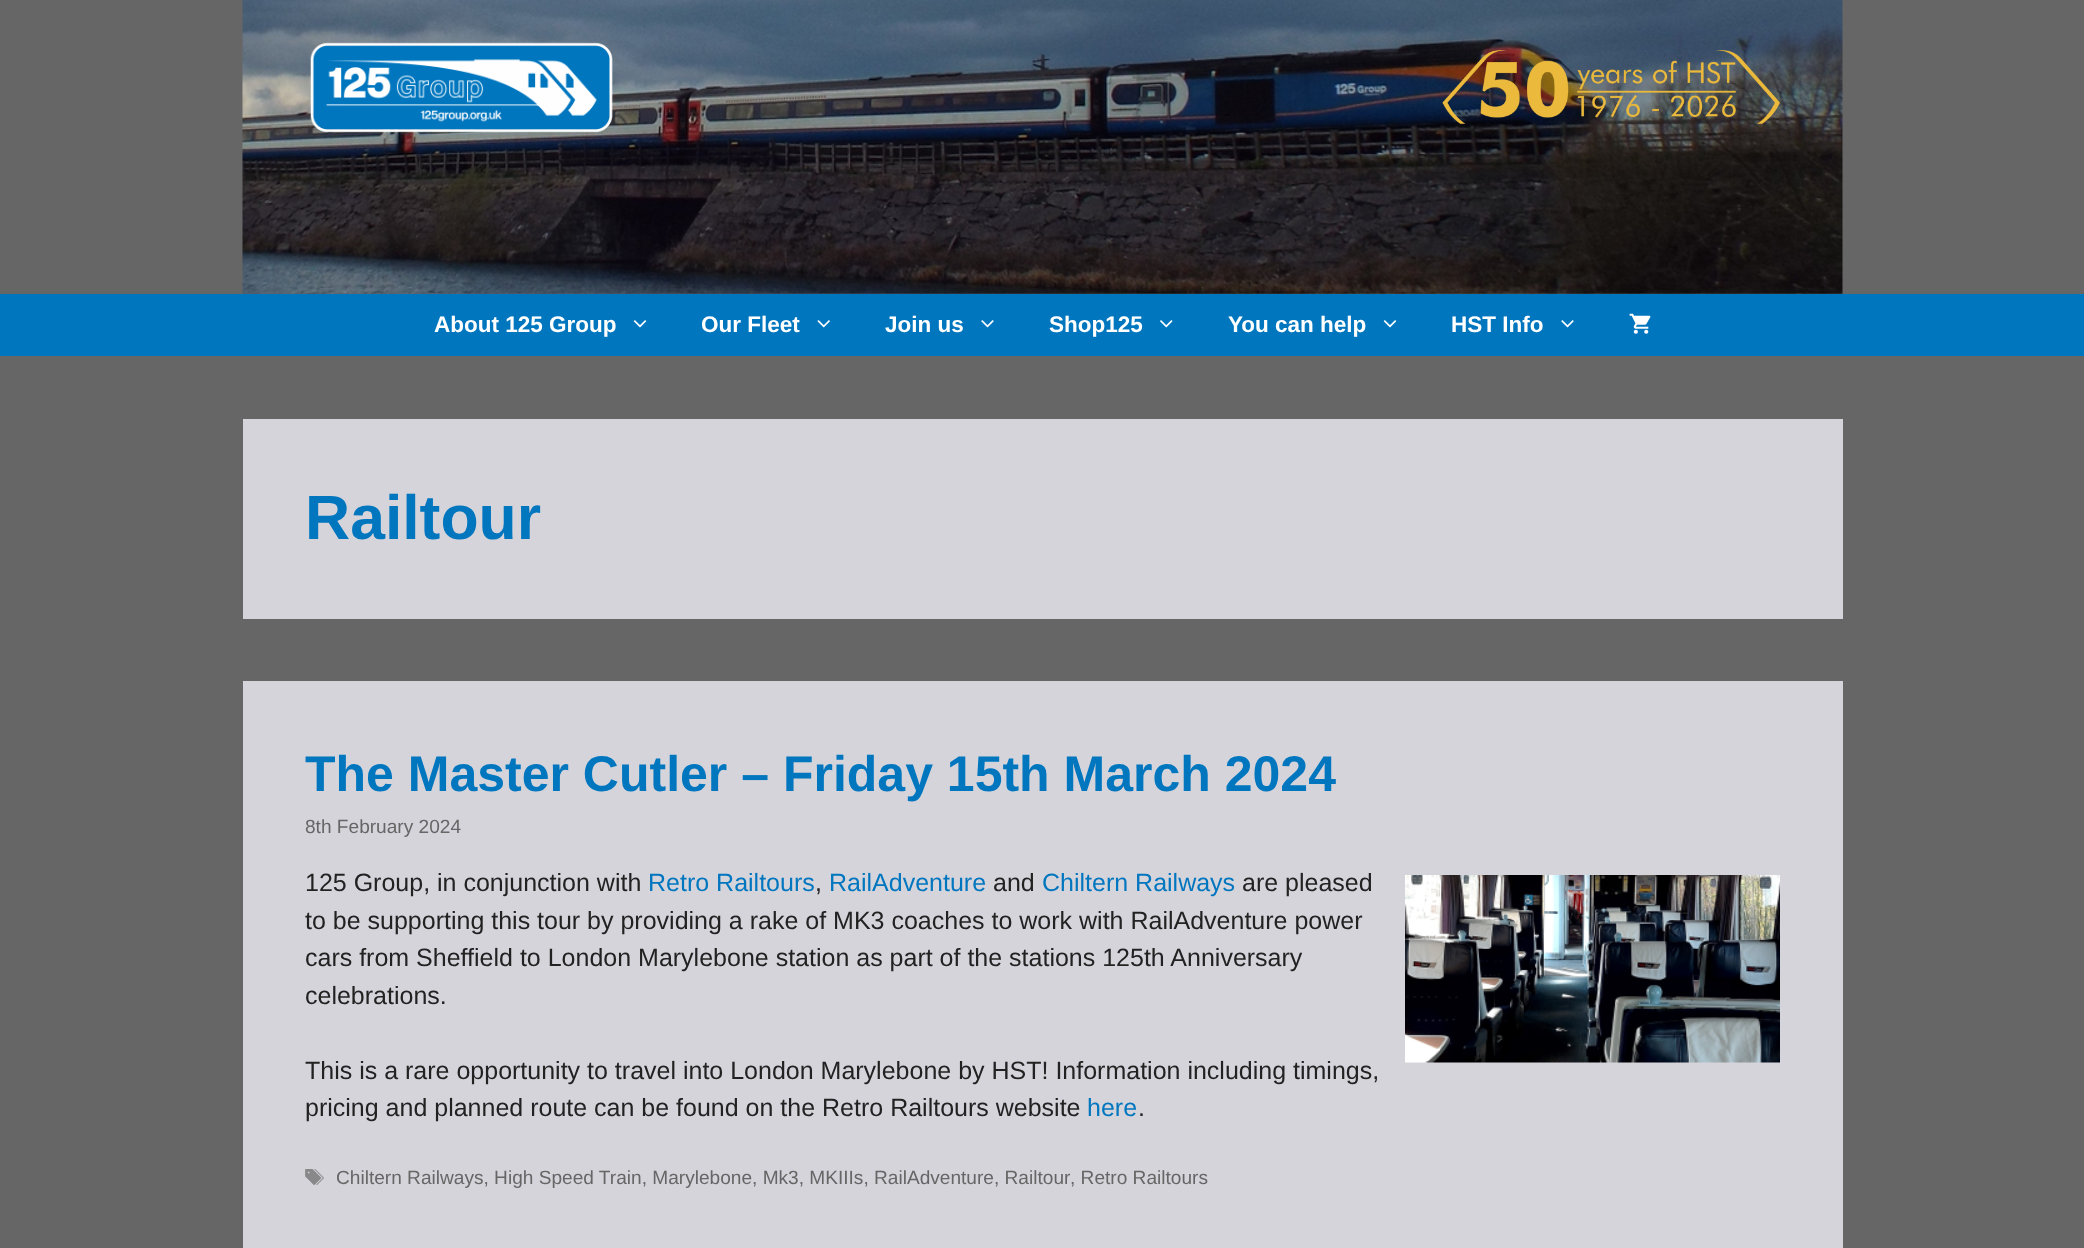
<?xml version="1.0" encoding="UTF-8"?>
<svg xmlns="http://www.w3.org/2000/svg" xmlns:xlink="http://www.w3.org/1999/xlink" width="2084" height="1248">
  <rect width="100%" height="100%" fill="#666666" />
  <image x="242" y="0" width="1601" height="294" xlink:href="image1.png" />
  <image x="310" y="42" width="303" height="91" xlink:href="image2.png" />
  <image x="1442" y="50" width="338" height="74" xlink:href="image3.png" />
  <rect y="294" width="2084" height="62" fill="#0076bf" />
  <image x="633" y="320" width="14" height="8" xlink:href="image4.png" />
  <image x="817" y="320" width="13" height="8" xlink:href="image5.png" />
  <image x="981" y="320" width="13" height="8" xlink:href="image6.png" />
  <image x="1160" y="320" width="13" height="8" xlink:href="image7.png" />
  <image x="1383" y="320" width="14" height="8" xlink:href="image4.png" />
  <image x="1561" y="320" width="13" height="8" xlink:href="image6.png" />
  <image x="1629" y="313" width="22" height="21" xlink:href="image8.png" />
  <rect x="243" y="419" width="1600" height="200" fill="#d6d4db" />
  <rect x="243" y="681" width="1600" height="567" fill="#d6d4db" />
  <image x="1405" y="875" width="375" height="188" xlink:href="image9.png" />
  <image x="305" y="1169" width="19" height="16" xlink:href="image10.png" />
  <text x="434" y="332" style="font-family: Liberation Sans; font-size: 22.5px; font-weight: bold; fill: #ffffff">About 125 Group</text>
  <text x="701" y="332" style="font-family: Liberation Sans; font-size: 22.5px; font-weight: bold; fill: #ffffff">Our Fleet</text>
  <text x="885" y="332" style="font-family: Liberation Sans; font-size: 22.5px; font-weight: bold; fill: #ffffff">Join us</text>
  <text x="1049" y="332" style="font-family: Liberation Sans; font-size: 22.5px; font-weight: bold; fill: #ffffff">Shop125</text>
  <text x="1228" y="332" style="font-family: Liberation Sans; font-size: 22.5px; font-weight: bold; fill: #ffffff">You can help</text>
  <text x="1451" y="332" style="font-family: Liberation Sans; font-size: 22.5px; font-weight: bold; fill: #ffffff">HST Info</text>
  <text x="305" y="539" style="font-family: Liberation Sans; font-size: 62.5px; font-weight: bold; fill: #0076bf">Railtour</text>
  <text x="305" y="791" style="font-family: Liberation Sans; font-size: 50px; font-weight: bold; fill: #0076bf">The Master Cutler – Friday 15th March 2024</text>
  <text x="305" y="833" style="font-family: Liberation Sans; font-size: 19.1px; fill: #666666">8th February 2024</text>
  <text x="305" y="891" style="font-family: Liberation Sans; font-size: 25px; fill: #222222">125 Group, in conjunction with</text>
  <text x="648" y="891" style="font-family: Liberation Sans; font-size: 25px; fill: #0076bf">Retro Railtours</text>
  <text x="815" y="891" style="font-family: Liberation Sans; font-size: 25px; fill: #222222">,</text>
  <text x="829" y="891" style="font-family: Liberation Sans; font-size: 25px; fill: #0076bf">RailAdventure</text>
  <text x="993" y="891" style="font-family: Liberation Sans; font-size: 25px; fill: #222222">and</text>
  <text x="1042" y="891" style="font-family: Liberation Sans; font-size: 25px; fill: #0076bf">Chiltern Railways</text>
  <text x="1242" y="891" style="font-family: Liberation Sans; font-size: 25px; fill: #222222">are pleased</text>
  <text x="305" y="929" style="font-family: Liberation Sans; font-size: 25px; fill: #222222">to be supporting this tour by providing a rake of MK3 coaches to work with RailAdventure power</text>
  <text x="305" y="966" style="font-family: Liberation Sans; font-size: 25px; fill: #222222">cars from Sheffield to London Marylebone station as part of the stations 125th Anniversary</text>
  <text x="305" y="1004" style="font-family: Liberation Sans; font-size: 25px; fill: #222222">celebrations.</text>
  <text x="305" y="1079" style="font-family: Liberation Sans; font-size: 25px; fill: #222222">This is a rare opportunity to travel into London Marylebone by HST! Information including timings,</text>
  <text x="305" y="1116" style="font-family: Liberation Sans; font-size: 25px; fill: #222222">pricing and planned route can be found on the Retro Railtours website</text>
  <text x="1087" y="1116" style="font-family: Liberation Sans; font-size: 25px; fill: #0076bf">here</text>
  <text x="1138" y="1116" style="font-family: Liberation Sans; font-size: 25px; fill: #222222">.</text>
  <text x="336" y="1184" style="font-family: Liberation Sans; font-size: 19.1px; fill: #666666">Chiltern Railways, High Speed Train, Marylebone, Mk3, MKIIIs, RailAdventure, Railtour</text>
  <text x="1070" y="1184" style="font-family: Liberation Sans; font-size: 19.1px; fill: #666666">, Retro Railtours</text>
</svg>
